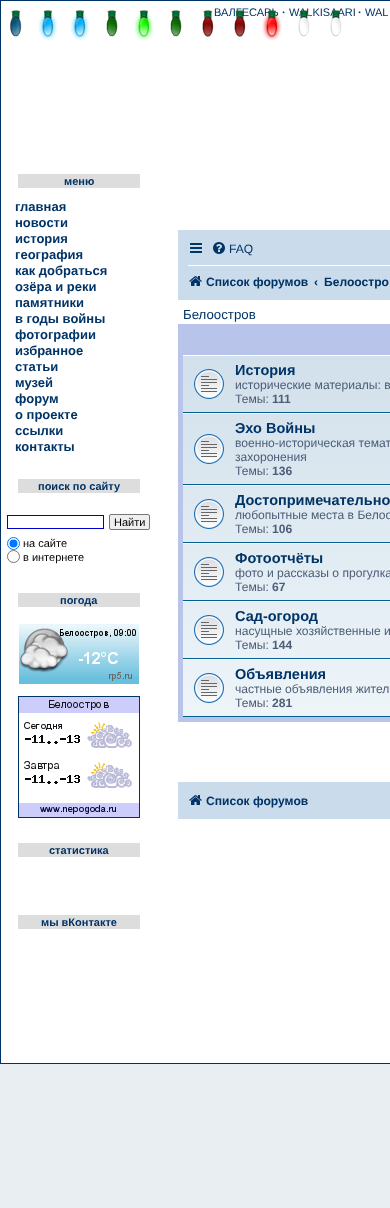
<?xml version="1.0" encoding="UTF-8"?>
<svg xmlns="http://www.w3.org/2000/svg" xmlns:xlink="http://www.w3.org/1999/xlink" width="390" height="1208">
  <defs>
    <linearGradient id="g1" gradientUnits="userSpaceOnUse" x1="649" y1="355" x2="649" y2="717"><stop offset="0" stop-color="#d2e0eb" /><stop offset="1" stop-color="#eef5f9" /></linearGradient>
  </defs>
  <rect width="100%" height="100%" fill="#e9eef2" />
  <rect x="1" y="1" width="389" height="1062" fill="#ffffff" />
  <rect width="390" height="1" fill="#003366" />
  <rect y="1063" width="390" height="1" fill="#003366" />
  <rect width="1" height="1064" fill="#003366" />
  <rect x="18" y="174" width="122" height="14" fill="#dddddd" />
  <rect x="18" y="479" width="122" height="14" fill="#dddddd" />
  <rect x="7.5" y="515.5" width="96" height="13" fill="none" stroke="#0000cc" />
  <rect x="109.5" y="514.5" width="40" height="15" rx="1.5" fill="#efefef" stroke="#767676" />
  <circle cx="13.5" cy="543.5" r="6" fill="none" stroke="#0075ff" />
  <circle cx="13.5" cy="543.5" r="4" fill="#0075ff" />
  <circle cx="13.5" cy="556.5" r="6" fill="none" stroke="#767676" />
  <rect x="18" y="593" width="122" height="14" fill="#dddddd" />
  <image x="19" y="624" width="120" height="60" xlink:href="image1.png" />
  <rect x="18.5" y="696.5" width="121" height="121" fill="none" stroke="#003366" />
  <image x="19" y="697" width="120" height="120" xlink:href="image2.png" />
  <rect x="18" y="843" width="122" height="14" fill="#dddddd" />
  <rect x="18" y="915" width="122" height="14" fill="#dddddd" />
  <image x="9" y="10" width="13" height="27" xlink:href="image3.png" />
  <image x="38" y="10" width="20" height="31" xlink:href="image4.png" />
  <image x="70" y="10" width="20" height="31" xlink:href="image4.png" />
  <image x="106" y="10" width="12" height="27" xlink:href="image5.png" />
  <image x="134" y="10" width="20" height="31" xlink:href="image6.png" />
  <image x="170" y="10" width="12" height="27" xlink:href="image5.png" />
  <image x="202" y="10" width="12" height="27" xlink:href="image7.png" />
  <rect x="178" y="230" width="212" height="70" fill="#cadceb" />
  <image x="190" y="243" width="12" height="10" xlink:href="image12.png" />
  <image x="213" y="242" width="12" height="12" xlink:href="image13.png" />
  <rect x="188" y="265" width="202" height="1" fill="#ffffff" />
  <image x="189" y="276" width="13" height="10" xlink:href="image14.png" />
  <rect x="178" y="324" width="212" height="398" fill="#b9c4ea" />
  <rect x="183" y="356" width="207" height="360" fill="url(#g1)" />
  <rect x="183" y="355" width="207" height="1" fill="#ffffff" />
  <rect x="183" y="412" width="207" height="1" fill="#00608f" />
  <image x="194" y="369" width="30" height="30" xlink:href="image15.png" />
  <rect x="183" y="413" width="207" height="1" fill="#ffffff" />
  <rect x="183" y="484" width="207" height="1" fill="#00608f" />
  <image x="194" y="434" width="30" height="30" xlink:href="image16.png" />
  <rect x="183" y="485" width="207" height="1" fill="#ffffff" />
  <rect x="183" y="542" width="207" height="1" fill="#00608f" />
  <image x="194" y="499" width="30" height="30" xlink:href="image17.png" />
  <rect x="183" y="543" width="207" height="1" fill="#ffffff" />
  <rect x="183" y="600" width="207" height="1" fill="#00608f" />
  <image x="194" y="557" width="30" height="30" xlink:href="image18.png" />
  <rect x="183" y="601" width="207" height="1" fill="#ffffff" />
  <rect x="183" y="658" width="207" height="1" fill="#00608f" />
  <image x="194" y="615" width="30" height="30" xlink:href="image19.png" />
  <rect x="183" y="659" width="207" height="1" fill="#ffffff" />
  <rect x="183" y="716" width="207" height="1" fill="#00608f" />
  <image x="194" y="673" width="30" height="30" xlink:href="image20.png" />
  <rect x="178" y="782" width="212" height="37" fill="#cadceb" />
  <image x="189" y="795" width="13" height="10" xlink:href="image14.png" />
  <text x="214" y="16" style="font-family: Liberation Sans; font-size: 11px; fill: #003366">ВАЛГЕСАРЬ</text>
  <text x="282" y="16" style="font-family: Liberation Sans; font-size: 11px; font-weight: bold; fill: #003366">·</text>
  <text x="289" y="16" style="font-family: Liberation Sans; font-size: 11px; fill: #003366">WALKISAARI</text>
  <text x="358" y="16" style="font-family: Liberation Sans; font-size: 11px; font-weight: bold; fill: #003366">·</text>
  <text x="365" y="16" style="font-family: Liberation Sans; font-size: 11px; fill: #003366">WAL</text>
  <text x="64" y="185" style="font-family: Liberation Sans; font-size: 11px; font-weight: bold; fill: #003366">меню</text>
  <text x="15" y="211" style="font-family: Liberation Sans; font-size: 13px; font-weight: bold; fill: #003366">главная</text>
  <text x="15" y="227" style="font-family: Liberation Sans; font-size: 13px; font-weight: bold; fill: #003366">новости</text>
  <text x="15" y="243" style="font-family: Liberation Sans; font-size: 13px; font-weight: bold; fill: #003366">история</text>
  <text x="15" y="259" style="font-family: Liberation Sans; font-size: 13px; font-weight: bold; fill: #003366">география</text>
  <text x="15" y="275" style="font-family: Liberation Sans; font-size: 13px; font-weight: bold; fill: #003366">как добраться</text>
  <text x="15" y="291" style="font-family: Liberation Sans; font-size: 13px; font-weight: bold; fill: #003366">озёра и реки</text>
  <text x="15" y="307" style="font-family: Liberation Sans; font-size: 13px; font-weight: bold; fill: #003366">памятники</text>
  <text x="15" y="323" style="font-family: Liberation Sans; font-size: 13px; font-weight: bold; fill: #003366">в годы войны</text>
  <text x="15" y="339" style="font-family: Liberation Sans; font-size: 13px; font-weight: bold; fill: #003366">фотографии</text>
  <text x="15" y="355" style="font-family: Liberation Sans; font-size: 13px; font-weight: bold; fill: #003366">избранное</text>
  <text x="15" y="371" style="font-family: Liberation Sans; font-size: 13px; font-weight: bold; fill: #003366">статьи</text>
  <text x="15" y="387" style="font-family: Liberation Sans; font-size: 13px; font-weight: bold; fill: #003366">музей</text>
  <text x="15" y="403" style="font-family: Liberation Sans; font-size: 13px; font-weight: bold; fill: #003366">форум</text>
  <text x="15" y="419" style="font-family: Liberation Sans; font-size: 13px; font-weight: bold; fill: #003366">о проекте</text>
  <text x="15" y="435" style="font-family: Liberation Sans; font-size: 13px; font-weight: bold; fill: #003366">ссылки</text>
  <text x="15" y="451" style="font-family: Liberation Sans; font-size: 13px; font-weight: bold; fill: #003366">контакты</text>
  <text x="38" y="490" style="font-family: Liberation Sans; font-size: 11px; font-weight: bold; fill: #003366">поиск по сайту</text>
  <text x="114" y="526" style="font-family: Liberation Sans; font-size: 11px; fill: #000000">Найти</text>
  <text x="23" y="547" style="font-family: Liberation Sans; font-size: 11px; fill: #000000">на сайте</text>
  <text x="23" y="561" style="font-family: Liberation Sans; font-size: 11px; fill: #000000">в интернете</text>
  <text x="60" y="604" style="font-family: Liberation Sans; font-size: 11px; font-weight: bold; fill: #003366">погода</text>
  <text x="49" y="854" style="font-family: Liberation Sans; font-size: 11px; font-weight: bold; fill: #003366">статистика</text>
  <text x="41" y="926" style="font-family: Liberation Sans; font-size: 11px; font-weight: bold; fill: #003366">мы вКонтакте</text>
  <image x="234" y="10" width="12" height="27" xlink:href="image8.png" />
  <image x="262" y="10" width="20" height="31" xlink:href="image9.png" />
  <image x="296" y="10" width="15" height="27" xlink:href="image10.png" />
  <image x="330" y="10" width="12" height="27" xlink:href="image11.png" />
  <text x="229" y="253" style="font-family: Liberation Sans; font-size: 12.1px; fill: #003366">FAQ</text>
  <text x="206" y="286" style="font-family: Liberation Sans; font-size: 12.1px; font-weight: bold; fill: #003366">Список форумов</text>
  <text x="314" y="286" style="font-family: Liberation Sans; font-size: 12.1px; font-weight: bold; fill: #003366">‹</text>
  <text x="324" y="286" style="font-family: Liberation Sans; font-size: 12.1px; font-weight: bold; fill: #003366">Белоостро</text>
  <text x="183" y="319" style="font-family: Liberation Sans; font-size: 13.25px; fill: #003366">Белоостров</text>
  <text x="235" y="375" style="font-family: Liberation Sans; font-size: 14.5px; font-weight: bold; fill: #003366">История</text>
  <text x="235" y="389" style="font-family: Liberation Sans; font-size: 12.1px; fill: #4c5d77">исторические материалы: в</text>
  <text x="235" y="403" style="font-family: Liberation Sans; font-size: 12.1px; fill: #4c5d77">Темы:</text>
  <text x="272" y="403" style="font-family: Liberation Sans; font-size: 12.1px; font-weight: bold; fill: #4c5d77">111</text>
  <text x="235" y="433" style="font-family: Liberation Sans; font-size: 14.5px; font-weight: bold; fill: #003366">Эхо Войны</text>
  <text x="235" y="447" style="font-family: Liberation Sans; font-size: 12.1px; fill: #4c5d77">военно-историческая темат</text>
  <text x="235" y="461" style="font-family: Liberation Sans; font-size: 12.1px; fill: #4c5d77">захоронения</text>
  <text x="235" y="475" style="font-family: Liberation Sans; font-size: 12.1px; fill: #4c5d77">Темы:</text>
  <text x="272" y="475" style="font-family: Liberation Sans; font-size: 12.1px; font-weight: bold; fill: #4c5d77">136</text>
  <text x="235" y="505" style="font-family: Liberation Sans; font-size: 14.5px; font-weight: bold; fill: #003366">Достопримечательно</text>
  <text x="235" y="519" style="font-family: Liberation Sans; font-size: 12.1px; fill: #4c5d77">любопытные места в Белоо</text>
  <text x="235" y="533" style="font-family: Liberation Sans; font-size: 12.1px; fill: #4c5d77">Темы:</text>
  <text x="272" y="533" style="font-family: Liberation Sans; font-size: 12.1px; font-weight: bold; fill: #4c5d77">106</text>
  <text x="235" y="563" style="font-family: Liberation Sans; font-size: 14.5px; font-weight: bold; fill: #003366">Фотоотчёты</text>
  <text x="235" y="577" style="font-family: Liberation Sans; font-size: 12.1px; fill: #4c5d77">фото и рассказы о прогулка</text>
  <text x="235" y="591" style="font-family: Liberation Sans; font-size: 12.1px; fill: #4c5d77">Темы:</text>
  <text x="272" y="591" style="font-family: Liberation Sans; font-size: 12.1px; font-weight: bold; fill: #4c5d77">67</text>
  <text x="235" y="621" style="font-family: Liberation Sans; font-size: 14.5px; font-weight: bold; fill: #003366">Сад-огород</text>
  <text x="235" y="635" style="font-family: Liberation Sans; font-size: 12.1px; fill: #4c5d77">насущные хозяйственные и</text>
  <text x="235" y="649" style="font-family: Liberation Sans; font-size: 12.1px; fill: #4c5d77">Темы:</text>
  <text x="272" y="649" style="font-family: Liberation Sans; font-size: 12.1px; font-weight: bold; fill: #4c5d77">144</text>
  <text x="235" y="679" style="font-family: Liberation Sans; font-size: 14.5px; font-weight: bold; fill: #003366">Объявления</text>
  <text x="235" y="693" style="font-family: Liberation Sans; font-size: 12.1px; fill: #4c5d77">частные объявления жител</text>
  <text x="235" y="707" style="font-family: Liberation Sans; font-size: 12.1px; fill: #4c5d77">Темы:</text>
  <text x="272" y="707" style="font-family: Liberation Sans; font-size: 12.1px; font-weight: bold; fill: #4c5d77">281</text>
  <text x="206" y="805" style="font-family: Liberation Sans; font-size: 12.1px; font-weight: bold; fill: #003366">Список форумов</text>
</svg>
